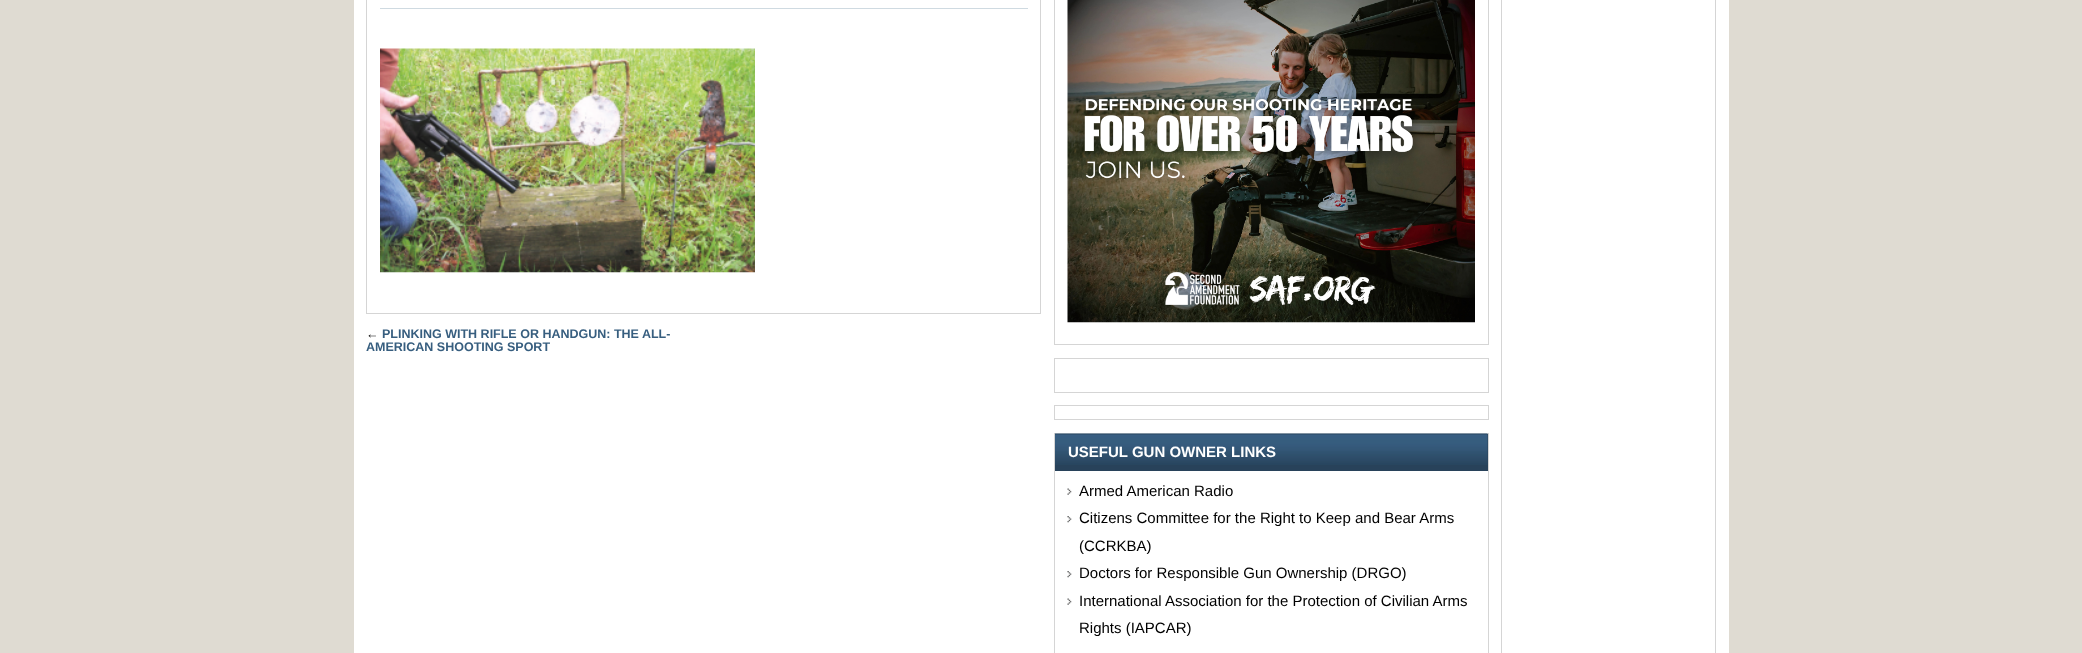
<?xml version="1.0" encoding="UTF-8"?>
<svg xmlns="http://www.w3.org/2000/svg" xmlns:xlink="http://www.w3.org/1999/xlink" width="2082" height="653">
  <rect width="100%" height="100%" fill="#dfdbd2" />
  <rect x="354" width="1375" height="653" fill="#ffffff" />
  <rect x="366.5" y="-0.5" width="674" height="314" fill="none" stroke="#d5d5d5" />
  <rect x="380" y="8" width="648" height="1" fill="#cfdae1" />
  <image x="380" y="48" width="375" height="225" xlink:href="image1.png" />
  <rect x="1054.5" y="-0.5" width="434" height="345" fill="none" stroke="#d5d5d5" />
  <image x="1067" y="0" width="408" height="323" xlink:href="image2.png" />
  <rect x="1054.5" y="358.5" width="434" height="34" fill="none" stroke="#d5d5d5" />
  <rect x="1054.5" y="405.5" width="434" height="14" fill="none" stroke="#d5d5d5" />
  <rect x="1054.5" y="433.5" width="434" height="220" fill="none" stroke="#d5d5d5" />
  <rect x="1055" y="434" width="433" height="37" fill="#28425a" />
  <image x="1055" y="433" width="433" height="32" xlink:href="image3.png" />
  <image x="1067" y="488" width="5" height="7" xlink:href="image4.png" />
  <image x="1067" y="516" width="5" height="7" xlink:href="image5.png" />
  <image x="1067" y="571" width="5" height="7" xlink:href="image5.png" />
  <image x="1067" y="598" width="5" height="7" xlink:href="image4.png" />
  <rect x="1501.5" y="-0.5" width="214" height="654" fill="none" stroke="#d5d5d5" />
  <text x="366" y="338" style="font-family: Liberation Sans; font-size: 12.5px; font-weight: bold; fill: #000000">←</text>
  <text x="382" y="338" style="font-family: Liberation Sans; font-size: 12.5px; font-weight: bold; fill: #375e7f">PLINKING WITH RIFLE OR HANDGUN: THE ALL-</text>
  <text x="366" y="351" style="font-family: Liberation Sans; font-size: 12.5px; font-weight: bold; fill: #375e7f">AMERICAN SHOOTING SPORT</text>
  <text x="1068" y="457" style="font-family: Liberation Sans; font-size: 15px; font-weight: bold; fill: #ffffff">USEFUL GUN OWNER LINKS</text>
  <text x="1079" y="496" style="font-family: Liberation Sans; font-size: 15px; fill: #000000">Armed American Radio</text>
  <text x="1079" y="523" style="font-family: Liberation Sans; font-size: 15px; fill: #000000">Citizens Committee for the Right to Keep and Bear Arms</text>
  <text x="1079" y="551" style="font-family: Liberation Sans; font-size: 15px; fill: #000000">(CCRKBA)</text>
  <text x="1079" y="578" style="font-family: Liberation Sans; font-size: 15px; fill: #000000">Doctors for Responsible Gun Ownership (DRGO)</text>
  <text x="1079" y="606" style="font-family: Liberation Sans; font-size: 15px; fill: #000000">International Association for the Protection of Civilian Arms</text>
  <text x="1079" y="633" style="font-family: Liberation Sans; font-size: 15px; fill: #000000">Rights (IAPCAR)</text>
</svg>
